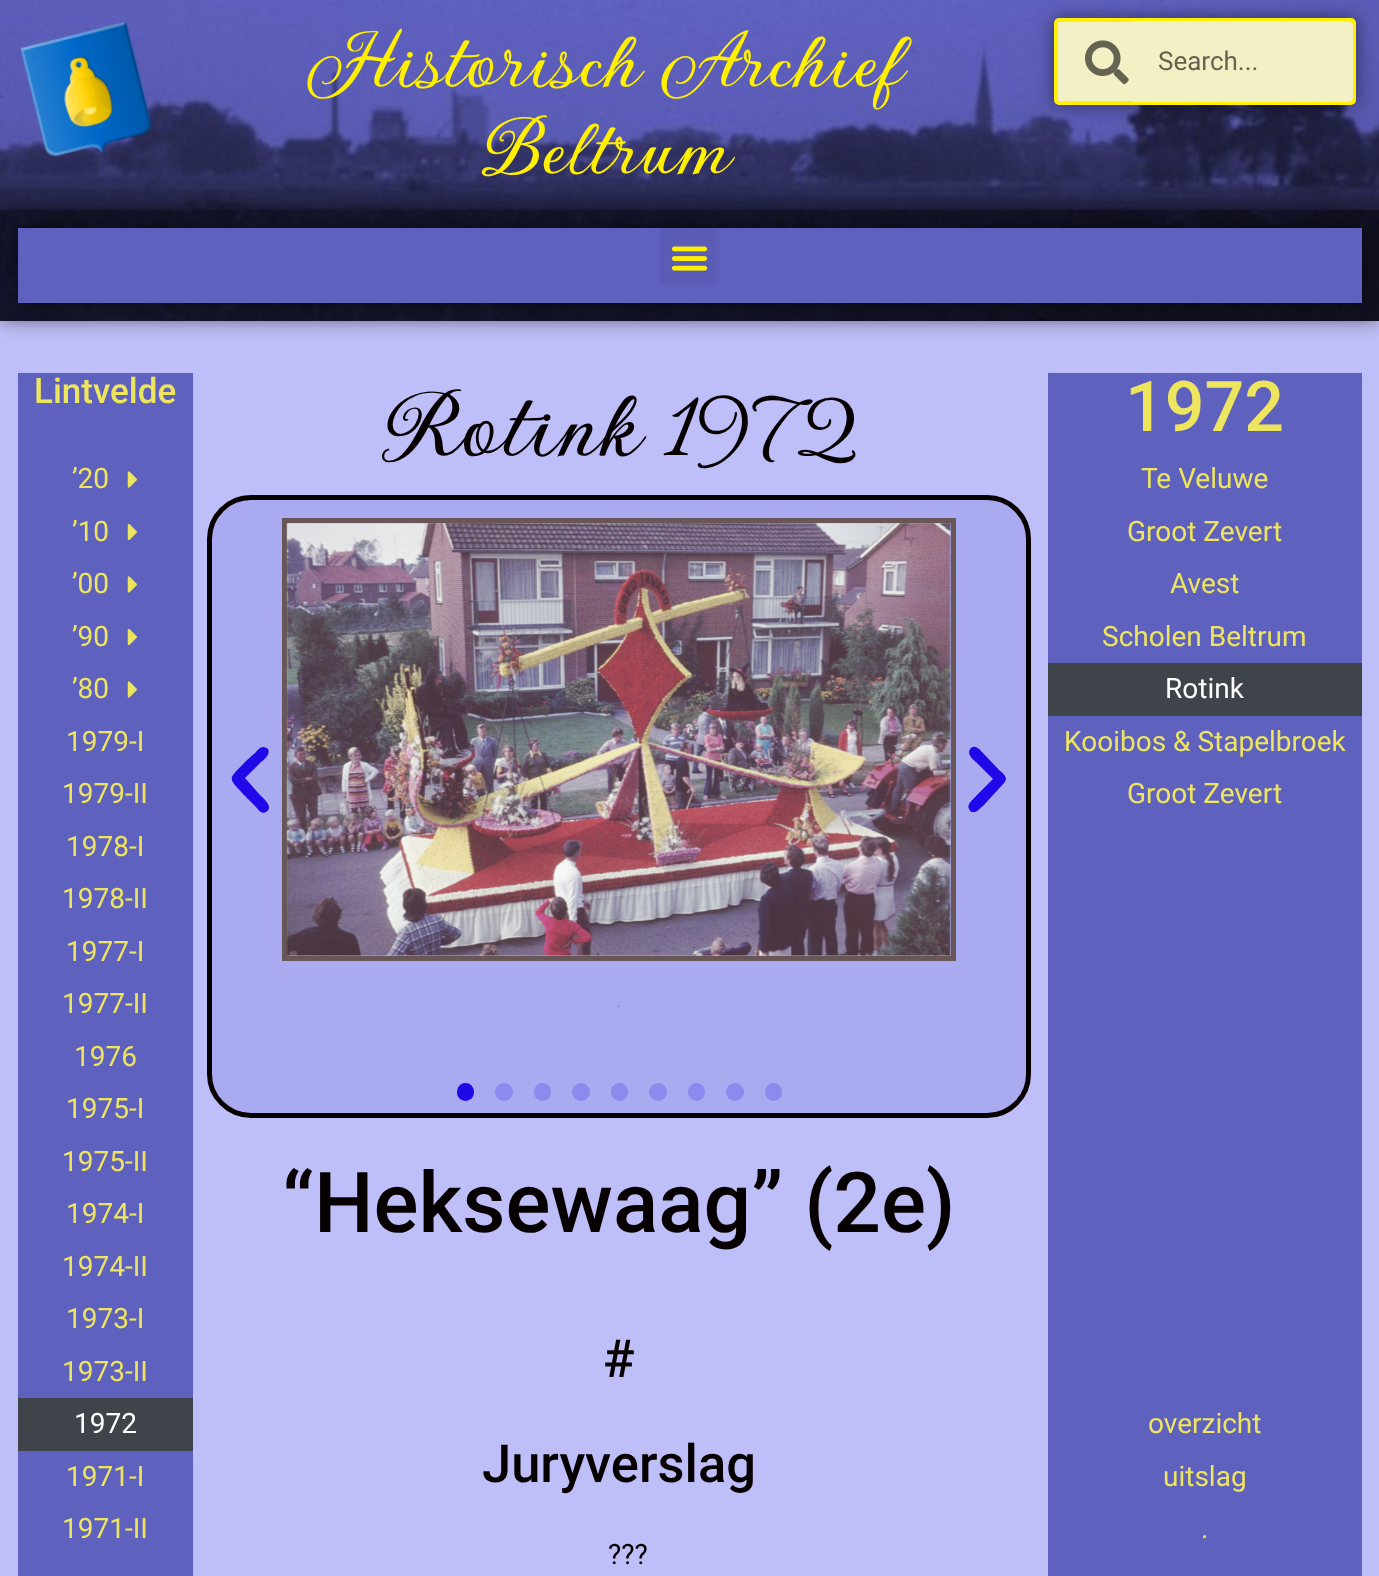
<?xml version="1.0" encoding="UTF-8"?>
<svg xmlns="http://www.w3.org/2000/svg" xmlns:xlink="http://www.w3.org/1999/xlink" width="1379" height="1576">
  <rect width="100%" height="100%" fill="#bebef8" />
  <image x="0" y="0" width="1379" height="210" xlink:href="image1.png" />
  <image x="20" y="21" width="132" height="136" xlink:href="image2.png" />
  <rect x="1054" y="18" width="302" height="87" rx="5" fill="#000000" fill-opacity="0.5" filter="blur(9px)" />
  <rect x="1056" y="20" width="298" height="83" rx="3" fill="#f3f0c6" stroke="#ffef00" stroke-width="4" />
  <image x="1085" y="40" width="44" height="45" xlink:href="image3.png" />
  <rect x="1129" y="21" width="224" height="81" rx="5" fill="#f3f0c6" />
  <rect y="210" width="1379" height="110" fill="#000000" fill-opacity="0.5" filter="blur(9px)" />
  <image x="0" y="210" width="1379" height="111" xlink:href="image5.png" />
  <rect x="18" y="228" width="1344" height="75" fill="#000000" fill-opacity="0.5" filter="blur(9px)" />
  <rect x="18" y="228" width="1344" height="75" fill="#5f61bf" />
  <rect x="660" y="228" width="59" height="57" rx="5" fill="#5a5cb5" />
  <image x="671" y="246" width="37" height="25" xlink:href="image4.png" />
  <rect x="18" y="373" width="175" height="1203" fill="#5f61bf" />
  <image x="127" y="471" width="10" height="17" xlink:href="image6.png" />
  <image x="127" y="523" width="10" height="18" xlink:href="image7.png" />
  <image x="127" y="576" width="10" height="17" xlink:href="image6.png" />
  <image x="127" y="628" width="10" height="18" xlink:href="image7.png" />
  <image x="127" y="681" width="10" height="17" xlink:href="image6.png" />
  <rect x="18" y="1398" width="175" height="53" fill="#3f444b" />
  <rect x="209.5" y="497.5" width="819" height="618" rx="41.5" fill="#a9aaef" stroke="#060000" stroke-width="5" />
  <path d="M 263 747 c -3 0 -6 4 -8 6 l -9 8 c -19 20 -19 15 0 36 l 9 9 c 3 3 6 9 11 6 c 2 -1 3 -3 3 -5 c 0 -4 -7 -10 -9 -12 l -15 -17 l 15 -15 c 3 -3 11 -8 8 -14 c -1 -1 -3 -2 -5 -2 z" fill="#2207e9" />
  <path d="M 1004 783 c 5 -5 -1 -10 -4 -12 l -17 -18 c -3 -3 -7 -9 -12 -5 c -1 1 -2 2 -2 4 c 0 5 6 9 9 12 l 15 15 l -16 16 c -2 3 -11 9 -8 14 c 1 2 2 3 3 3 c 5 1 7 -3 11 -6 z" fill="#2207e9" />
  <rect x="284.5" y="520.5" width="669" height="438" fill="none" stroke="#695757" stroke-width="5" />
  <image x="286" y="523" width="665" height="433" xlink:href="image8.png" />
  <rect x="457" y="1083" width="17" height="18" rx="8.5" fill="#2207e9" />
  <circle cx="504" cy="1092" r="9" fill="#8e89ee" />
  <rect x="534" y="1083" width="17" height="18" rx="8.5" fill="#8e89ee" />
  <circle cx="581" cy="1092" r="9" fill="#8e89ee" />
  <rect x="611" y="1083" width="17" height="18" rx="8.5" fill="#8e89ee" />
  <circle cx="658" cy="1092" r="9" fill="#8e89ee" />
  <rect x="688" y="1083" width="17" height="18" rx="8.5" fill="#8e89ee" />
  <circle cx="735" cy="1092" r="9" fill="#8e89ee" />
  <rect x="765" y="1083" width="17" height="18" rx="8.5" fill="#8e89ee" />
  <rect x="1048" y="373" width="314" height="1203" fill="#5f61bf" />
  <rect x="1048" y="663" width="314" height="53" fill="#3f444b" />
  <text x="308" y="86" style="font-family: Gwendolyn; font-size: 87.5px; font-weight: bold; fill: #ffef00">Historisch Archief</text>
  <text x="481" y="173" style="font-family: Gwendolyn; font-size: 87.5px; font-weight: bold; fill: #ffef00">Beltrum</text>
  <text x="1158" y="70" style="font-family: Roboto; font-size: 26px; fill: #646350">Search...</text>
  <text x="34" y="403" style="font-family: Roboto; font-size: 35px; font-weight: 500; fill: #eee55e">Lintvelde</text>
  <text x="72" y="488" style="font-family: Roboto; font-size: 28px; fill: #eee55e">’20</text>
  <text x="72" y="541" style="font-family: Roboto; font-size: 28px; fill: #eee55e">’10</text>
  <text x="72" y="593" style="font-family: Roboto; font-size: 28px; fill: #eee55e">’00</text>
  <text x="72" y="646" style="font-family: Roboto; font-size: 28px; fill: #eee55e">’90</text>
  <text x="72" y="698" style="font-family: Roboto; font-size: 28px; fill: #eee55e">’80</text>
  <text x="66" y="751" style="font-family: Roboto; font-size: 28px; fill: #eee55e">1979-I</text>
  <text x="62" y="803" style="font-family: Roboto; font-size: 28px; fill: #eee55e">1979-II</text>
  <text x="66" y="856" style="font-family: Roboto; font-size: 28px; fill: #eee55e">1978-I</text>
  <text x="62" y="908" style="font-family: Roboto; font-size: 28px; fill: #eee55e">1978-II</text>
  <text x="66" y="961" style="font-family: Roboto; font-size: 28px; fill: #eee55e">1977-I</text>
  <text x="62" y="1013" style="font-family: Roboto; font-size: 28px; fill: #eee55e">1977-II</text>
  <text x="74" y="1066" style="font-family: Roboto; font-size: 28px; fill: #eee55e">1976</text>
  <text x="66" y="1118" style="font-family: Roboto; font-size: 28px; fill: #eee55e">1975-I</text>
  <text x="62" y="1171" style="font-family: Roboto; font-size: 28px; fill: #eee55e">1975-II</text>
  <text x="66" y="1223" style="font-family: Roboto; font-size: 28px; fill: #eee55e">1974-I</text>
  <text x="62" y="1276" style="font-family: Roboto; font-size: 28px; fill: #eee55e">1974-II</text>
  <text x="66" y="1328" style="font-family: Roboto; font-size: 28px; fill: #eee55e">1973-I</text>
  <text x="62" y="1381" style="font-family: Roboto; font-size: 28px; fill: #eee55e">1973-II</text>
  <text x="74" y="1433" style="font-family: Roboto; font-size: 28px; fill: #ffffff">1972</text>
  <text x="66" y="1486" style="font-family: Roboto; font-size: 28px; fill: #eee55e">1971-I</text>
  <text x="62" y="1538" style="font-family: Roboto; font-size: 28px; fill: #eee55e">1971-II</text>
  <text x="384" y="455" style="font-family: Gwendolyn; font-size: 105px; font-weight: bold; fill: #060000">Rotink 1972</text>
  <text x="616" y="1007" style="font-family: Roboto; font-size: 21px; fill: #9192e6">.</text>
  <text x="282" y="1232" style="font-family: Roboto; font-size: 84px; font-weight: 500; fill: #060000">“Heksewaag” (2e)</text>
  <text x="603" y="1377" style="font-family: Roboto; font-size: 52.5px; font-weight: 500; fill: #060000">#</text>
  <text x="482" y="1482" style="font-family: Roboto; font-size: 52.5px; font-weight: 500; fill: #060000">Juryverslag</text>
  <text x="608" y="1564" style="font-family: Roboto; font-size: 28px; fill: #060000">???</text>
  <text x="1125" y="431" style="font-family: Roboto; font-size: 70px; font-weight: 500; fill: #eee55e">1972</text>
  <text x="1141" y="488" style="font-family: Roboto; font-size: 28px; fill: #eee55e">Te Veluwe</text>
  <text x="1127" y="541" style="font-family: Roboto; font-size: 28px; fill: #eee55e">Groot Zevert</text>
  <text x="1170" y="593" style="font-family: Roboto; font-size: 28px; fill: #eee55e">Avest</text>
  <text x="1102" y="646" style="font-family: Roboto; font-size: 28px; fill: #eee55e">Scholen Beltrum</text>
  <text x="1165" y="698" style="font-family: Roboto; font-size: 28px; fill: #ffffff">Rotink</text>
  <text x="1064" y="751" style="font-family: Roboto; font-size: 28px; fill: #eee55e">Kooibos &amp; Stapelbroek</text>
  <text x="1127" y="803" style="font-family: Roboto; font-size: 28px; fill: #eee55e">Groot Zevert</text>
  <text x="1148" y="1433" style="font-family: Roboto; font-size: 28px; fill: #eee55e">overzicht</text>
  <text x="1163" y="1486" style="font-family: Roboto; font-size: 28px; fill: #eee55e">uitslag</text>
  <text x="1201" y="1538" style="font-family: Roboto; font-size: 28px; fill: #eee55e">.</text>
</svg>
